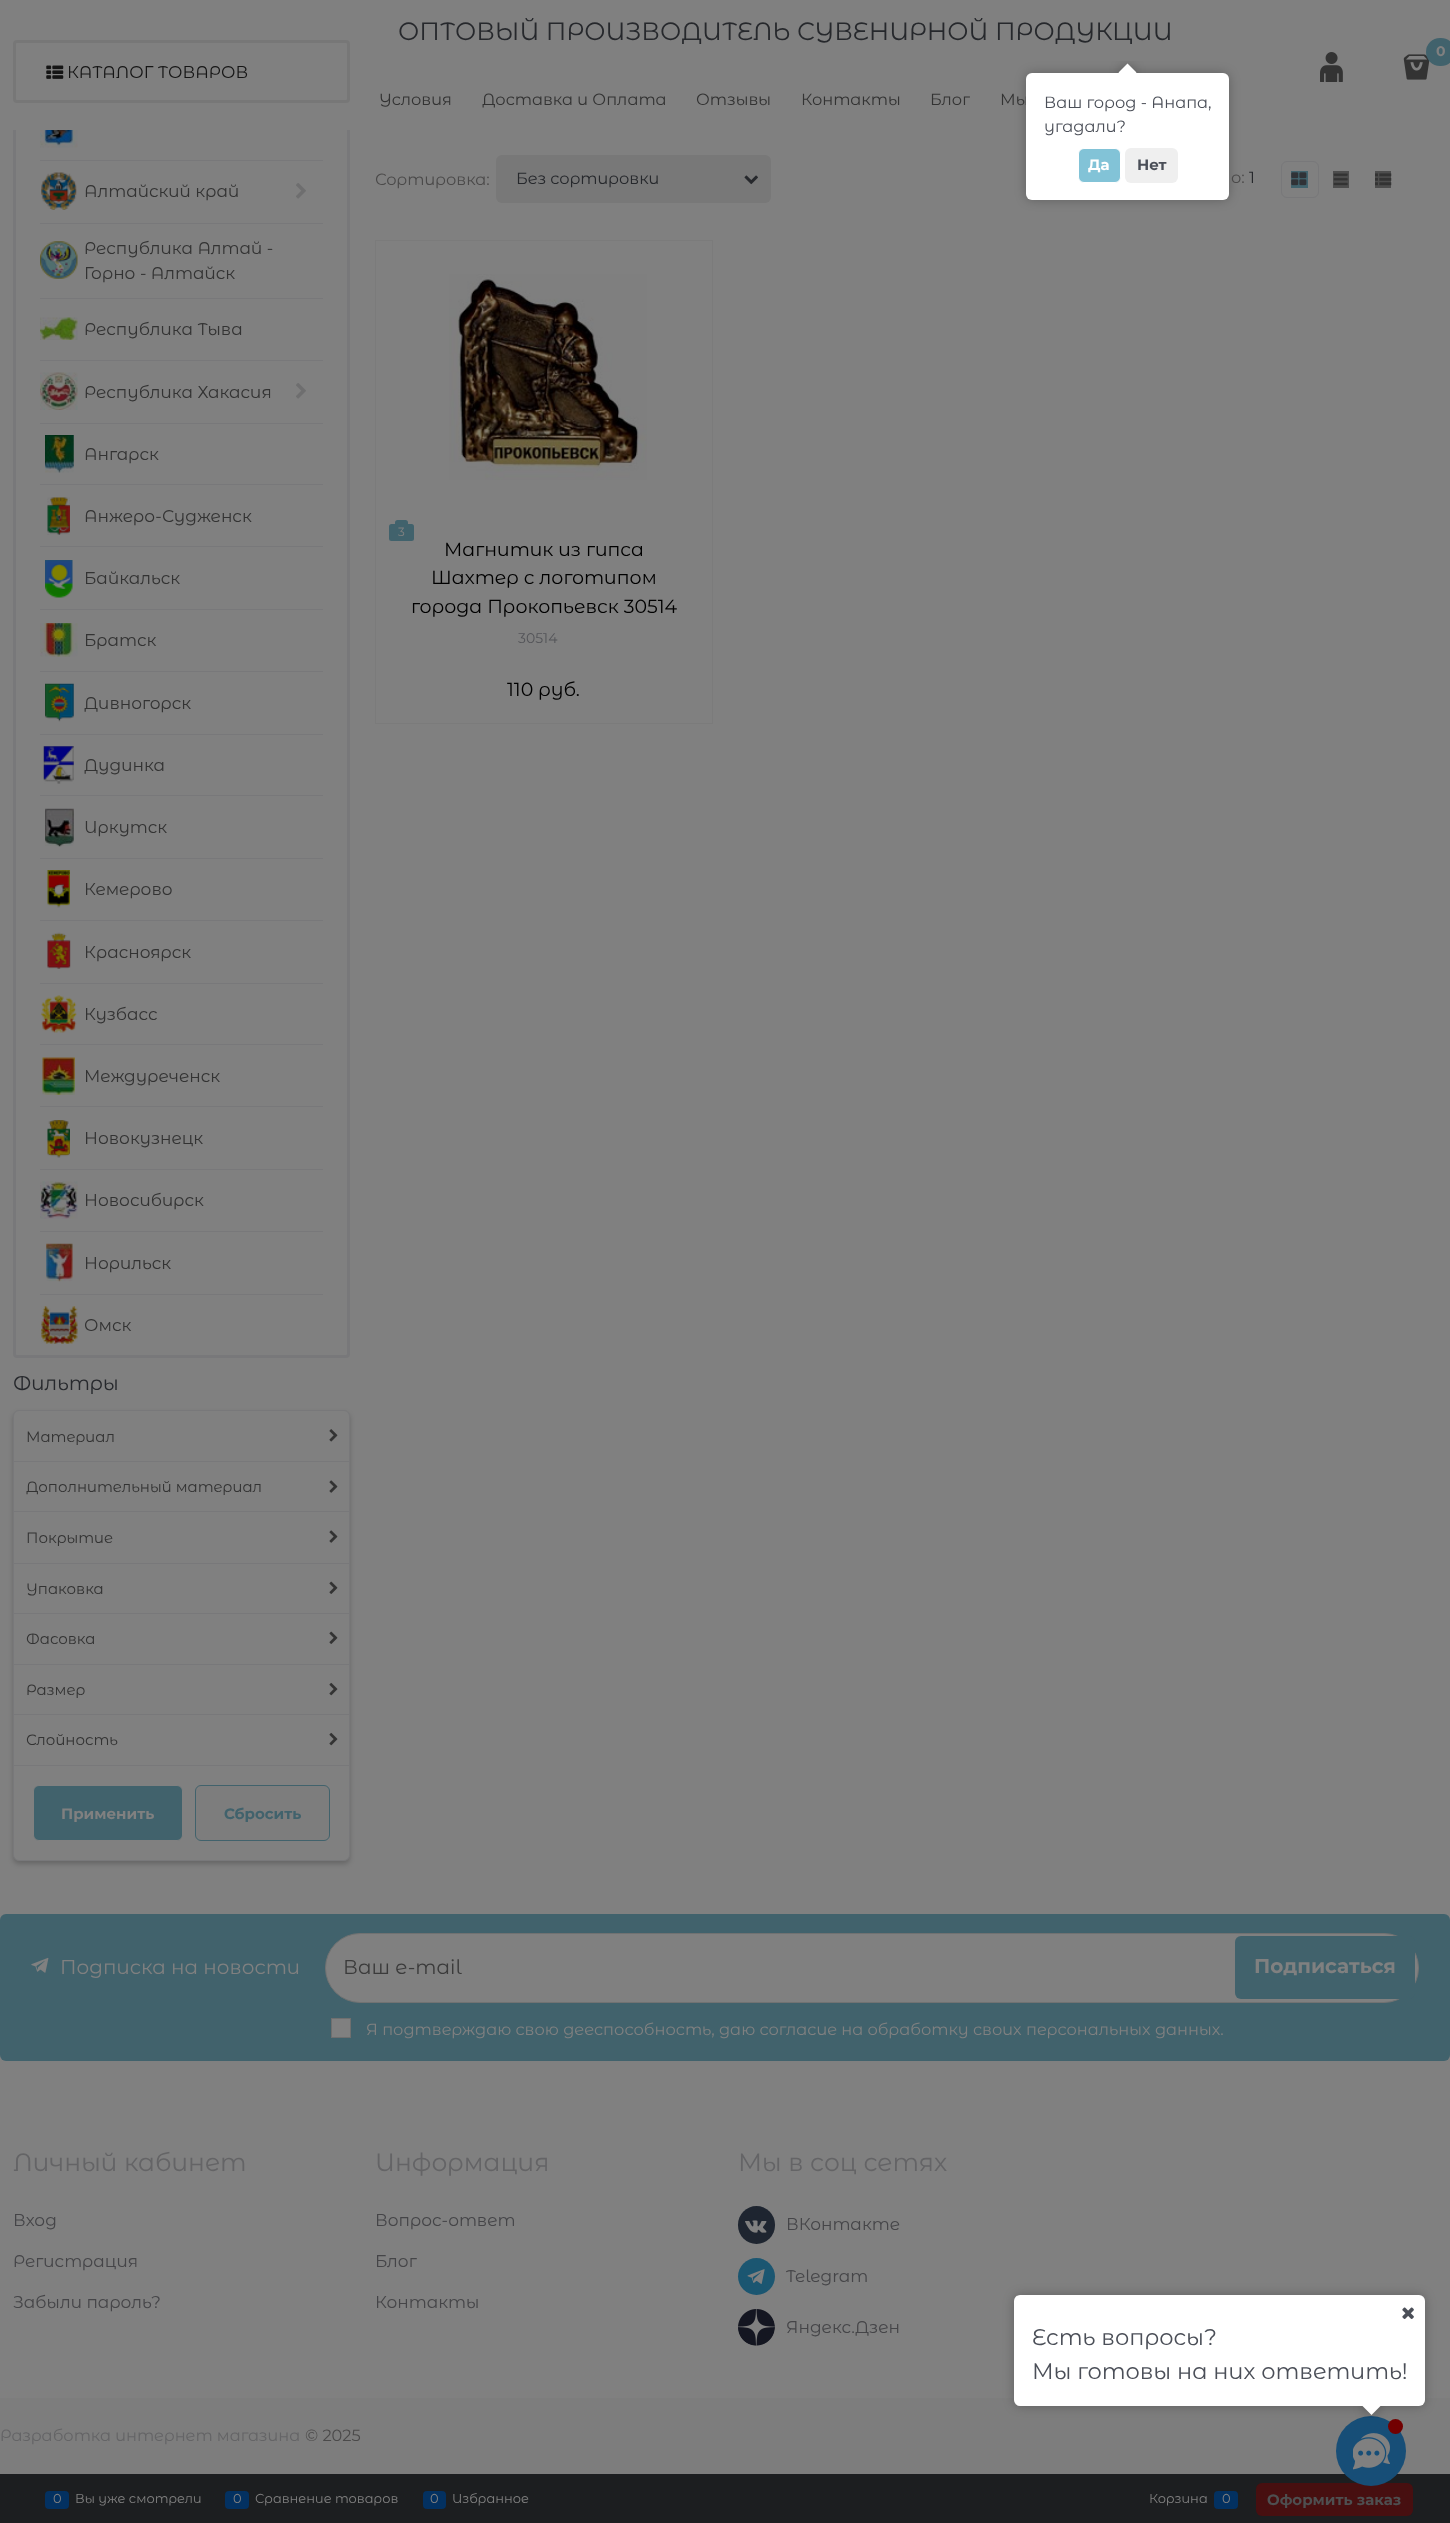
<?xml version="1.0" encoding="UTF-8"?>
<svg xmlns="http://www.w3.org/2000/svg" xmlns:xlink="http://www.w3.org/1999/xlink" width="1450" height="2523">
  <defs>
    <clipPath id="clip1"><rect x="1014" y="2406" width="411" height="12" /></clipPath>
    <clipPath id="clip2"><rect x="1014" y="2406" width="411" height="12" /></clipPath>
    <clipPath id="clip3"><rect x="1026" y="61" width="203" height="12" /></clipPath>
    <clipPath id="clip4"><rect x="1026" y="61" width="203" height="12" /></clipPath>
  </defs>
  <rect width="100%" height="100%" fill="#808080" />
  <rect x="14.5" y="97.5" width="334" height="1259" rx="2.5" fill="none" stroke="#78787a" stroke-width="3" />
  <rect x="13" y="96" width="337" height="34" fill="#808080" />
  <image x="1320" y="52" width="23" height="30" xlink:href="image1.png" />
  <image x="1403" y="54" width="27" height="26" xlink:href="image2.png" />
  <rect x="1426" y="38" width="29" height="28" rx="14" fill="#41626c" />
  <rect x="14.5" y="41.5" width="334" height="60" rx="2.5" fill="none" stroke="#777777" stroke-width="3" />
  <image x="46" y="65" width="18" height="14" xlink:href="image3.png" />
  <image x="40" y="130" width="38" height="18" xlink:href="image4.png" />
  <rect x="40" y="160" width="283" height="1" fill="#78787a" />
  <image x="41" y="172" width="36" height="38" xlink:href="image5.png" />
  <image x="296" y="183" width="10" height="16" xlink:href="image6.png" />
  <rect x="40" y="223" width="283" height="1" fill="#78787a" />
  <image x="40" y="241" width="38" height="38" xlink:href="image7.png" />
  <rect x="40" y="298" width="283" height="1" fill="#78787a" />
  <image x="40" y="317" width="38" height="23" xlink:href="image8.png" />
  <rect x="40" y="360" width="283" height="1" fill="#78787a" />
  <image x="40" y="372" width="38" height="38" xlink:href="image9.png" />
  <image x="296" y="383" width="10" height="16" xlink:href="image6.png" />
  <rect x="40" y="423" width="283" height="1" fill="#78787a" />
  <image x="45" y="435" width="29" height="38" xlink:href="image10.png" />
  <rect x="40" y="484" width="283" height="1" fill="#78787a" />
  <image x="47" y="497" width="23" height="38" xlink:href="image11.png" />
  <rect x="40" y="546" width="283" height="1" fill="#78787a" />
  <image x="45" y="560" width="28" height="38" xlink:href="image12.png" />
  <rect x="40" y="609" width="283" height="1" fill="#78787a" />
  <image x="40" y="623" width="38" height="34" xlink:href="image13.png" />
  <rect x="40" y="671" width="283" height="1" fill="#78787a" />
  <image x="45" y="683" width="29" height="39" xlink:href="image14.png" />
  <rect x="40" y="734" width="283" height="1" fill="#78787a" />
  <image x="43" y="746" width="31" height="38" xlink:href="image15.png" />
  <rect x="40" y="795" width="283" height="1" fill="#78787a" />
  <image x="45" y="808" width="29" height="39" xlink:href="image16.png" />
  <rect x="40" y="858" width="283" height="1" fill="#78787a" />
  <image x="47" y="870" width="23" height="38" xlink:href="image17.png" />
  <rect x="40" y="920" width="283" height="1" fill="#78787a" />
  <image x="47" y="932" width="24" height="37" xlink:href="image18.png" />
  <rect x="40" y="983" width="283" height="1" fill="#78787a" />
  <image x="41" y="995" width="36" height="38" xlink:href="image19.png" />
  <rect x="40" y="1044" width="283" height="1" fill="#78787a" />
  <image x="42" y="1057" width="33" height="38" xlink:href="image20.png" />
  <rect x="40" y="1106" width="283" height="1" fill="#78787a" />
  <image x="47" y="1120" width="23" height="38" xlink:href="image21.png" />
  <rect x="40" y="1169" width="283" height="1" fill="#78787a" />
  <image x="40" y="1181" width="38" height="38" xlink:href="image22.png" />
  <rect x="40" y="1231" width="283" height="1" fill="#78787a" />
  <image x="46" y="1243" width="27" height="39" xlink:href="image23.png" />
  <rect x="40" y="1294" width="283" height="1" fill="#78787a" />
  <image x="41" y="1306" width="37" height="38" xlink:href="image24.png" />
  <rect x="13" y="1413" width="337" height="451" rx="6" fill="#000000" fill-opacity="0.2" filter="blur(2.5px)" />
  <rect x="13.5" y="1410.5" width="336" height="450" rx="5.5" fill="#808080" stroke="#78787a" />
  <image x="329" y="1429" width="9" height="13" xlink:href="image25.png" />
  <rect x="14" y="1461" width="335" height="1" fill="#78787a" />
  <image x="329" y="1480" width="9" height="13" xlink:href="image26.png" />
  <rect x="14" y="1511" width="335" height="1" fill="#78787a" />
  <image x="329" y="1530" width="9" height="13" xlink:href="image26.png" />
  <rect x="14" y="1563" width="335" height="1" fill="#78787a" />
  <image x="329" y="1581" width="9" height="13" xlink:href="image27.png" />
  <rect x="14" y="1613" width="335" height="1" fill="#78787a" />
  <image x="329" y="1631" width="9" height="13" xlink:href="image27.png" />
  <rect x="14" y="1664" width="335" height="1" fill="#78787a" />
  <image x="329" y="1682" width="9" height="14" xlink:href="image28.png" />
  <rect x="14" y="1714" width="335" height="1" fill="#78787a" />
  <image x="329" y="1732" width="9" height="14" xlink:href="image28.png" />
  <rect x="14" y="1765" width="335" height="1" fill="#78787a" />
  <rect x="33.5" y="1785.5" width="149" height="55" rx="5.5" fill="#41626c" stroke="#808080" />
  <rect x="195.5" y="1785.5" width="134" height="55" rx="5.5" fill="#7d7d7d" stroke="#41626c" />
  <rect x="496" y="155" width="275" height="48" rx="6" fill="#787878" />
  <image x="744" y="175" width="14" height="10" xlink:href="image29.png" />
  <rect x="1281.5" y="161.5" width="37" height="36" rx="5.5" fill="none" stroke="#78787a" />
  <rect x="1291" y="171" width="17" height="17" fill="#41626c" />
  <image x="1291" y="172" width="16" height="14" xlink:href="image30.png" />
  <rect x="1333" y="171" width="16" height="17" fill="#4d4d4d" />
  <image x="1333" y="173" width="15" height="13" xlink:href="image31.png" />
  <rect x="1375" y="171" width="16" height="17" fill="#4d4d4d" />
  <image x="1375" y="173" width="17" height="13" xlink:href="image32.png" />
  <rect x="375.5" y="240.5" width="337" height="483" fill="none" stroke="#7b7b7b" />
  <image x="449" y="274" width="198" height="206" xlink:href="image33.png" />
  <rect x="389" y="524" width="25" height="17" rx="2.5" fill="#41626c" />
  <path d="M 397.5 520 h 8 c 1.5 0 2.5 1 2.5 2.5 v 1.5 h -13 v -1.5 c 0 -1.5 1 -2.5 2.5 -2.5 z" fill="#41626c" />
  <rect y="1914" width="1450" height="147" rx="6" fill="#41626c" />
  <image x="31" y="1957" width="18" height="16" xlink:href="image34.png" />
  <rect x="325.5" y="1933.5" width="1093" height="69" rx="34.5" fill="#808080" stroke="#717272" />
  <rect x="1235" y="1936" width="180" height="63" rx="6" fill="#41626c" />
  <rect x="331.5" y="2018.5" width="19" height="19" fill="#808080" stroke="#6f6f6f" />
  <rect x="738" y="2206" width="37" height="38" rx="18.5" fill="#1e2530" />
  <image x="745" y="2220" width="22" height="13" xlink:href="image35.png" />
  <circle cx="756.5" cy="2276.5" r="18.5" fill="#1b5671" />
  <image x="747" y="2269" width="18" height="15" xlink:href="image36.png" />
  <image x="738" y="2309" width="37" height="37" xlink:href="image37.png" />
  <rect y="2398" width="1450" height="76" fill="#7d7d7d" />
  <rect y="2474" width="1450" height="49" fill="#1c1e20" />
  <rect x="45" y="2491" width="24" height="18" rx="4" fill="#033161" />
  <rect x="225" y="2491" width="24" height="18" rx="4" fill="#033161" />
  <rect x="423" y="2491" width="23" height="18" rx="4" fill="#033161" />
  <rect x="1214" y="2491" width="24" height="18" rx="4" fill="#033161" />
  <rect x="1256" y="2483" width="157" height="33" rx="6" fill="#470f10" />
  <rect x="1026" y="73" width="203" height="127" rx="6" fill="#000000" fill-opacity="0.25" filter="blur(5.5px)" />
  <circle cx="1371" cy="2451" r="35" fill="#174e77" />
  <image x="1353" y="2433" width="37" height="37" xlink:href="image39.png" />
  <circle cx="1395.5" cy="2426.5" r="7.5" fill="#720001" />
  <rect x="1014" y="2295" width="411" height="111" rx="6" fill="#000000" fill-opacity="0.25" filter="blur(5.5px)" />
  <rect x="1014" y="2295" width="411" height="111" rx="6" fill="#ffffff" />
  <image x="1402" y="2307" width="12" height="12" xlink:href="image38.png" />
  <g clip-path="url(#clip1)">
    <rect x="1365" y="2400" width="13" height="13" fill="#000000" fill-opacity="0.25" filter="blur(5.5px)" />
  </g>
  <g clip-path="url(#clip2)">
    <path d="M 1371.5 2397 l 9 9 l -9 9 l -9 -9 z" fill="#ffffff" />
  </g>
  <text x="398" y="40" style="font-family: Montserrat Alternates; font-size: 25px; fill: #26282c">ОПТОВЫЙ ПРОИЗВОДИТЕЛЬ СУВЕНИРНОЙ ПРОДУКЦИИ</text>
  <text x="379" y="105" style="font-family: Montserrat Alternates; font-size: 16.25px; fill: #333333">Условия</text>
  <text x="482" y="105" style="font-family: Montserrat Alternates; font-size: 16.25px; fill: #333333">Доставка и Оплата</text>
  <text x="696" y="105" style="font-family: Montserrat Alternates; font-size: 16.25px; fill: #333333">Отзывы</text>
  <text x="801" y="105" style="font-family: Montserrat Alternates; font-size: 16.25px; fill: #333333">Контакты</text>
  <text x="930" y="105" style="font-family: Montserrat Alternates; font-size: 16.25px; fill: #333333">Блог</text>
  <text x="1000" y="105" style="font-family: Montserrat Alternates; font-size: 16.25px; fill: #333333">Мы</text>
  <text x="1436" y="56" style="font-family: Montserrat; font-size: 14px; font-weight: bold; fill: #808080">0</text>
  <text x="67" y="78" style="font-family: Montserrat Alternates; font-size: 17px; fill: #151515">КАТАЛОГ ТОВАРОВ</text>
  <text x="84" y="197" style="font-family: Montserrat Alternates; font-size: 17px; fill: #333333">Алтайский край</text>
  <text x="84" y="254" style="font-family: Montserrat Alternates; font-size: 17px; fill: #333333">Республика Алтай -</text>
  <text x="84" y="279" style="font-family: Montserrat Alternates; font-size: 17px; fill: #333333">Горно - Алтайск</text>
  <text x="84" y="335" style="font-family: Montserrat Alternates; font-size: 17px; fill: #333333">Республика Тыва</text>
  <text x="84" y="398" style="font-family: Montserrat Alternates; font-size: 17px; fill: #333333">Республика Хакасия</text>
  <text x="84" y="460" style="font-family: Montserrat Alternates; font-size: 17px; fill: #333333">Ангарск</text>
  <text x="84" y="522" style="font-family: Montserrat Alternates; font-size: 17px; fill: #333333">Анжеро-Судженск</text>
  <text x="84" y="584" style="font-family: Montserrat Alternates; font-size: 17px; fill: #333333">Байкальск</text>
  <text x="84" y="646" style="font-family: Montserrat Alternates; font-size: 17px; fill: #333333">Братск</text>
  <text x="84" y="709" style="font-family: Montserrat Alternates; font-size: 17px; fill: #333333">Дивногорск</text>
  <text x="84" y="771" style="font-family: Montserrat Alternates; font-size: 17px; fill: #333333">Дудинка</text>
  <text x="84" y="833" style="font-family: Montserrat Alternates; font-size: 17px; fill: #333333">Иркутск</text>
  <text x="84" y="895" style="font-family: Montserrat Alternates; font-size: 17px; fill: #333333">Кемерово</text>
  <text x="84" y="958" style="font-family: Montserrat Alternates; font-size: 17px; fill: #333333">Красноярск</text>
  <text x="84" y="1020" style="font-family: Montserrat Alternates; font-size: 17px; fill: #333333">Кузбасс</text>
  <text x="84" y="1082" style="font-family: Montserrat Alternates; font-size: 17px; fill: #333333">Междуреченск</text>
  <text x="84" y="1144" style="font-family: Montserrat Alternates; font-size: 17px; fill: #333333">Новокузнецк</text>
  <text x="84" y="1206" style="font-family: Montserrat Alternates; font-size: 17px; fill: #333333">Новосибирск</text>
  <text x="84" y="1269" style="font-family: Montserrat Alternates; font-size: 17px; fill: #333333">Норильск</text>
  <text x="84" y="1331" style="font-family: Montserrat Alternates; font-size: 17px; fill: #333333">Омск</text>
  <text x="13" y="1390" style="font-family: Montserrat Alternates; font-size: 20px; fill: #26282c">Фильтры</text>
  <text x="26" y="1442" style="font-family: Montserrat Alternates; font-size: 15px; fill: #333333">Материал</text>
  <text x="26" y="1492" style="font-family: Montserrat Alternates; font-size: 15px; fill: #333333">Дополнительный материал</text>
  <text x="26" y="1543" style="font-family: Montserrat Alternates; font-size: 15px; fill: #333333">Покрытие</text>
  <text x="26" y="1594" style="font-family: Montserrat Alternates; font-size: 15px; fill: #333333">Упаковка</text>
  <text x="26" y="1644" style="font-family: Montserrat Alternates; font-size: 15px; fill: #333333">Фасовка</text>
  <text x="26" y="1695" style="font-family: Montserrat Alternates; font-size: 15px; fill: #333333">Размер</text>
  <text x="26" y="1745" style="font-family: Montserrat Alternates; font-size: 15px; fill: #333333">Слойность</text>
  <text x="61" y="1819" style="font-family: Montserrat; font-size: 15px; font-weight: bold; fill: #808080">Применить</text>
  <text x="224" y="1819" style="font-family: Montserrat; font-size: 15px; font-weight: bold; fill: #41626c">Сбросить</text>
  <text x="375" y="185" style="font-family: Montserrat Alternates; font-size: 16.25px; fill: #4b4a4a">Сортировка:</text>
  <text x="516" y="184" style="font-family: Montserrat Alternates; font-size: 16.25px; fill: #26282c">Без сортировки</text>
  <text x="1231" y="183" style="font-family: Montserrat Alternates; font-size: 16.25px; fill: #4b4a4a">о:</text>
  <text x="1249" y="183" style="font-family: Montserrat Alternates; font-size: 16.25px; fill: #26282c">1</text>
  <text x="398" y="536" style="font-family: Montserrat Alternates; font-size: 12px; fill: #808080">3</text>
  <text x="444" y="556" style="font-family: Montserrat Alternates; font-size: 19px; fill: #000000">Магнитик из гипса</text>
  <text x="431" y="584" style="font-family: Montserrat Alternates; font-size: 19px; fill: #000000">Шахтер с логотипом</text>
  <text x="411" y="613" style="font-family: Montserrat Alternates; font-size: 19px; fill: #000000">города Прокопьевск 30514</text>
  <text x="518" y="643" style="font-family: Montserrat Alternates; font-size: 14px; fill: #535458">30514</text>
  <text x="507" y="696" style="font-family: Montserrat Alternates; font-size: 19px; fill: #000000">110 руб.</text>
  <text x="60" y="1974" style="font-family: Montserrat Alternates; font-size: 20px; fill: #808080">Подписка на новости</text>
  <text x="343" y="1974" style="font-family: Montserrat Alternates; font-size: 20px; fill: #3b3b3b">Ваш e-mail</text>
  <text x="1254" y="1973" style="font-family: Montserrat; font-size: 20px; font-weight: bold; fill: #808080">Подписаться</text>
  <text x="366" y="2035" style="font-family: Montserrat Alternates; font-size: 16.25px; fill: #808080">Я подтверждаю свою дееспособность, даю согласие на обработку своих персональных данных.</text>
  <text x="13" y="2171" style="font-family: Montserrat Alternates; font-size: 25px; fill: #646466">Личный кабинет</text>
  <text x="13" y="2226" style="font-family: Montserrat Alternates; font-size: 17px; fill: #454548">Вход</text>
  <text x="13" y="2267" style="font-family: Montserrat Alternates; font-size: 17px; fill: #454548">Регистрация</text>
  <text x="13" y="2308" style="font-family: Montserrat Alternates; font-size: 17px; fill: #454548">Забыли пароль?</text>
  <text x="375" y="2171" style="font-family: Montserrat Alternates; font-size: 25px; fill: #646466">Информация</text>
  <text x="375" y="2226" style="font-family: Montserrat Alternates; font-size: 17px; fill: #454548">Вопрос-ответ</text>
  <text x="375" y="2267" style="font-family: Montserrat Alternates; font-size: 17px; fill: #454548">Блог</text>
  <text x="375" y="2308" style="font-family: Montserrat Alternates; font-size: 17px; fill: #454548">Контакты</text>
  <text x="738" y="2171" style="font-family: Montserrat Alternates; font-size: 25px; fill: #646466">Мы в соц сетях</text>
  <text x="786" y="2230" style="font-family: Montserrat Alternates; font-size: 17px; fill: #454548">ВКонтакте</text>
  <text x="786" y="2282" style="font-family: Montserrat Alternates; font-size: 17px; fill: #454548">Telegram</text>
  <text x="786" y="2333" style="font-family: Montserrat Alternates; font-size: 17px; fill: #454548">Яндекс.Дзен</text>
  <text x="0" y="2441" style="font-family: Montserrat Alternates; font-size: 16.25px; fill: #646466">Разработка интернет магазина</text>
  <text x="305" y="2441" style="font-family: Montserrat Alternates; font-size: 16.25px; fill: #4b4a4a">© 2025</text>
  <text x="53" y="2503" style="font-family: Montserrat Alternates; font-size: 13px; fill: #808080">0</text>
  <text x="75" y="2503" style="font-family: Montserrat Alternates; font-size: 13px; fill: #808080">Вы уже смотрели</text>
  <text x="233" y="2503" style="font-family: Montserrat Alternates; font-size: 13px; fill: #808080">0</text>
  <text x="255" y="2503" style="font-family: Montserrat Alternates; font-size: 13px; fill: #808080">Сравнение товаров</text>
  <text x="430" y="2503" style="font-family: Montserrat Alternates; font-size: 13px; fill: #808080">0</text>
  <text x="452" y="2503" style="font-family: Montserrat Alternates; font-size: 13px; fill: #808080">Избранное</text>
  <text x="1149" y="2503" style="font-family: Montserrat Alternates; font-size: 13px; fill: #808080">Корзина</text>
  <text x="1222" y="2503" style="font-family: Montserrat Alternates; font-size: 13px; fill: #808080">0</text>
  <text x="1267" y="2505" style="font-family: Montserrat; font-size: 15px; font-weight: bold; fill: #4e4f50">Оформить заказ</text>
  <rect x="1026" y="73" width="203" height="127" rx="6" fill="#ffffff" />
  <g clip-path="url(#clip3)">
    <rect x="1121" y="66" width="13" height="13" fill="#000000" fill-opacity="0.25" filter="blur(5.5px)" />
  </g>
  <g clip-path="url(#clip4)">
    <path d="M 1127.5 63.5 l 9 9 l -9 9 l -9 -9 z" fill="#ffffff" />
  </g>
  <text x="1044" y="108" style="font-family: Montserrat Alternates; font-size: 16.25px; fill: #4b4f58">Ваш город - Анапа,</text>
  <text x="1044" y="132" style="font-family: Montserrat Alternates; font-size: 16.25px; fill: #4b4f58">угадали?</text>
  <rect x="1078.5" y="148.5" width="42" height="34" rx="5.5" fill="#82c3d7" stroke="#ffffff" />
  <text x="1088" y="170" style="font-family: Montserrat; font-size: 15px; font-weight: bold; fill: #ffffff">Да</text>
  <rect x="1125" y="148" width="53" height="35" rx="6" fill="#efefef" />
  <text x="1137" y="170" style="font-family: Montserrat; font-size: 15px; font-weight: bold; fill: #4b4f58">Нет</text>
  <text x="1032" y="2345" style="font-family: Montserrat Alternates; font-size: 22.5px; fill: #4b4f58">Есть вопросы?</text>
  <text x="1032" y="2379" style="font-family: Montserrat Alternates; font-size: 22.5px; fill: #4b4f58">Мы готовы на них ответить!</text>
</svg>
